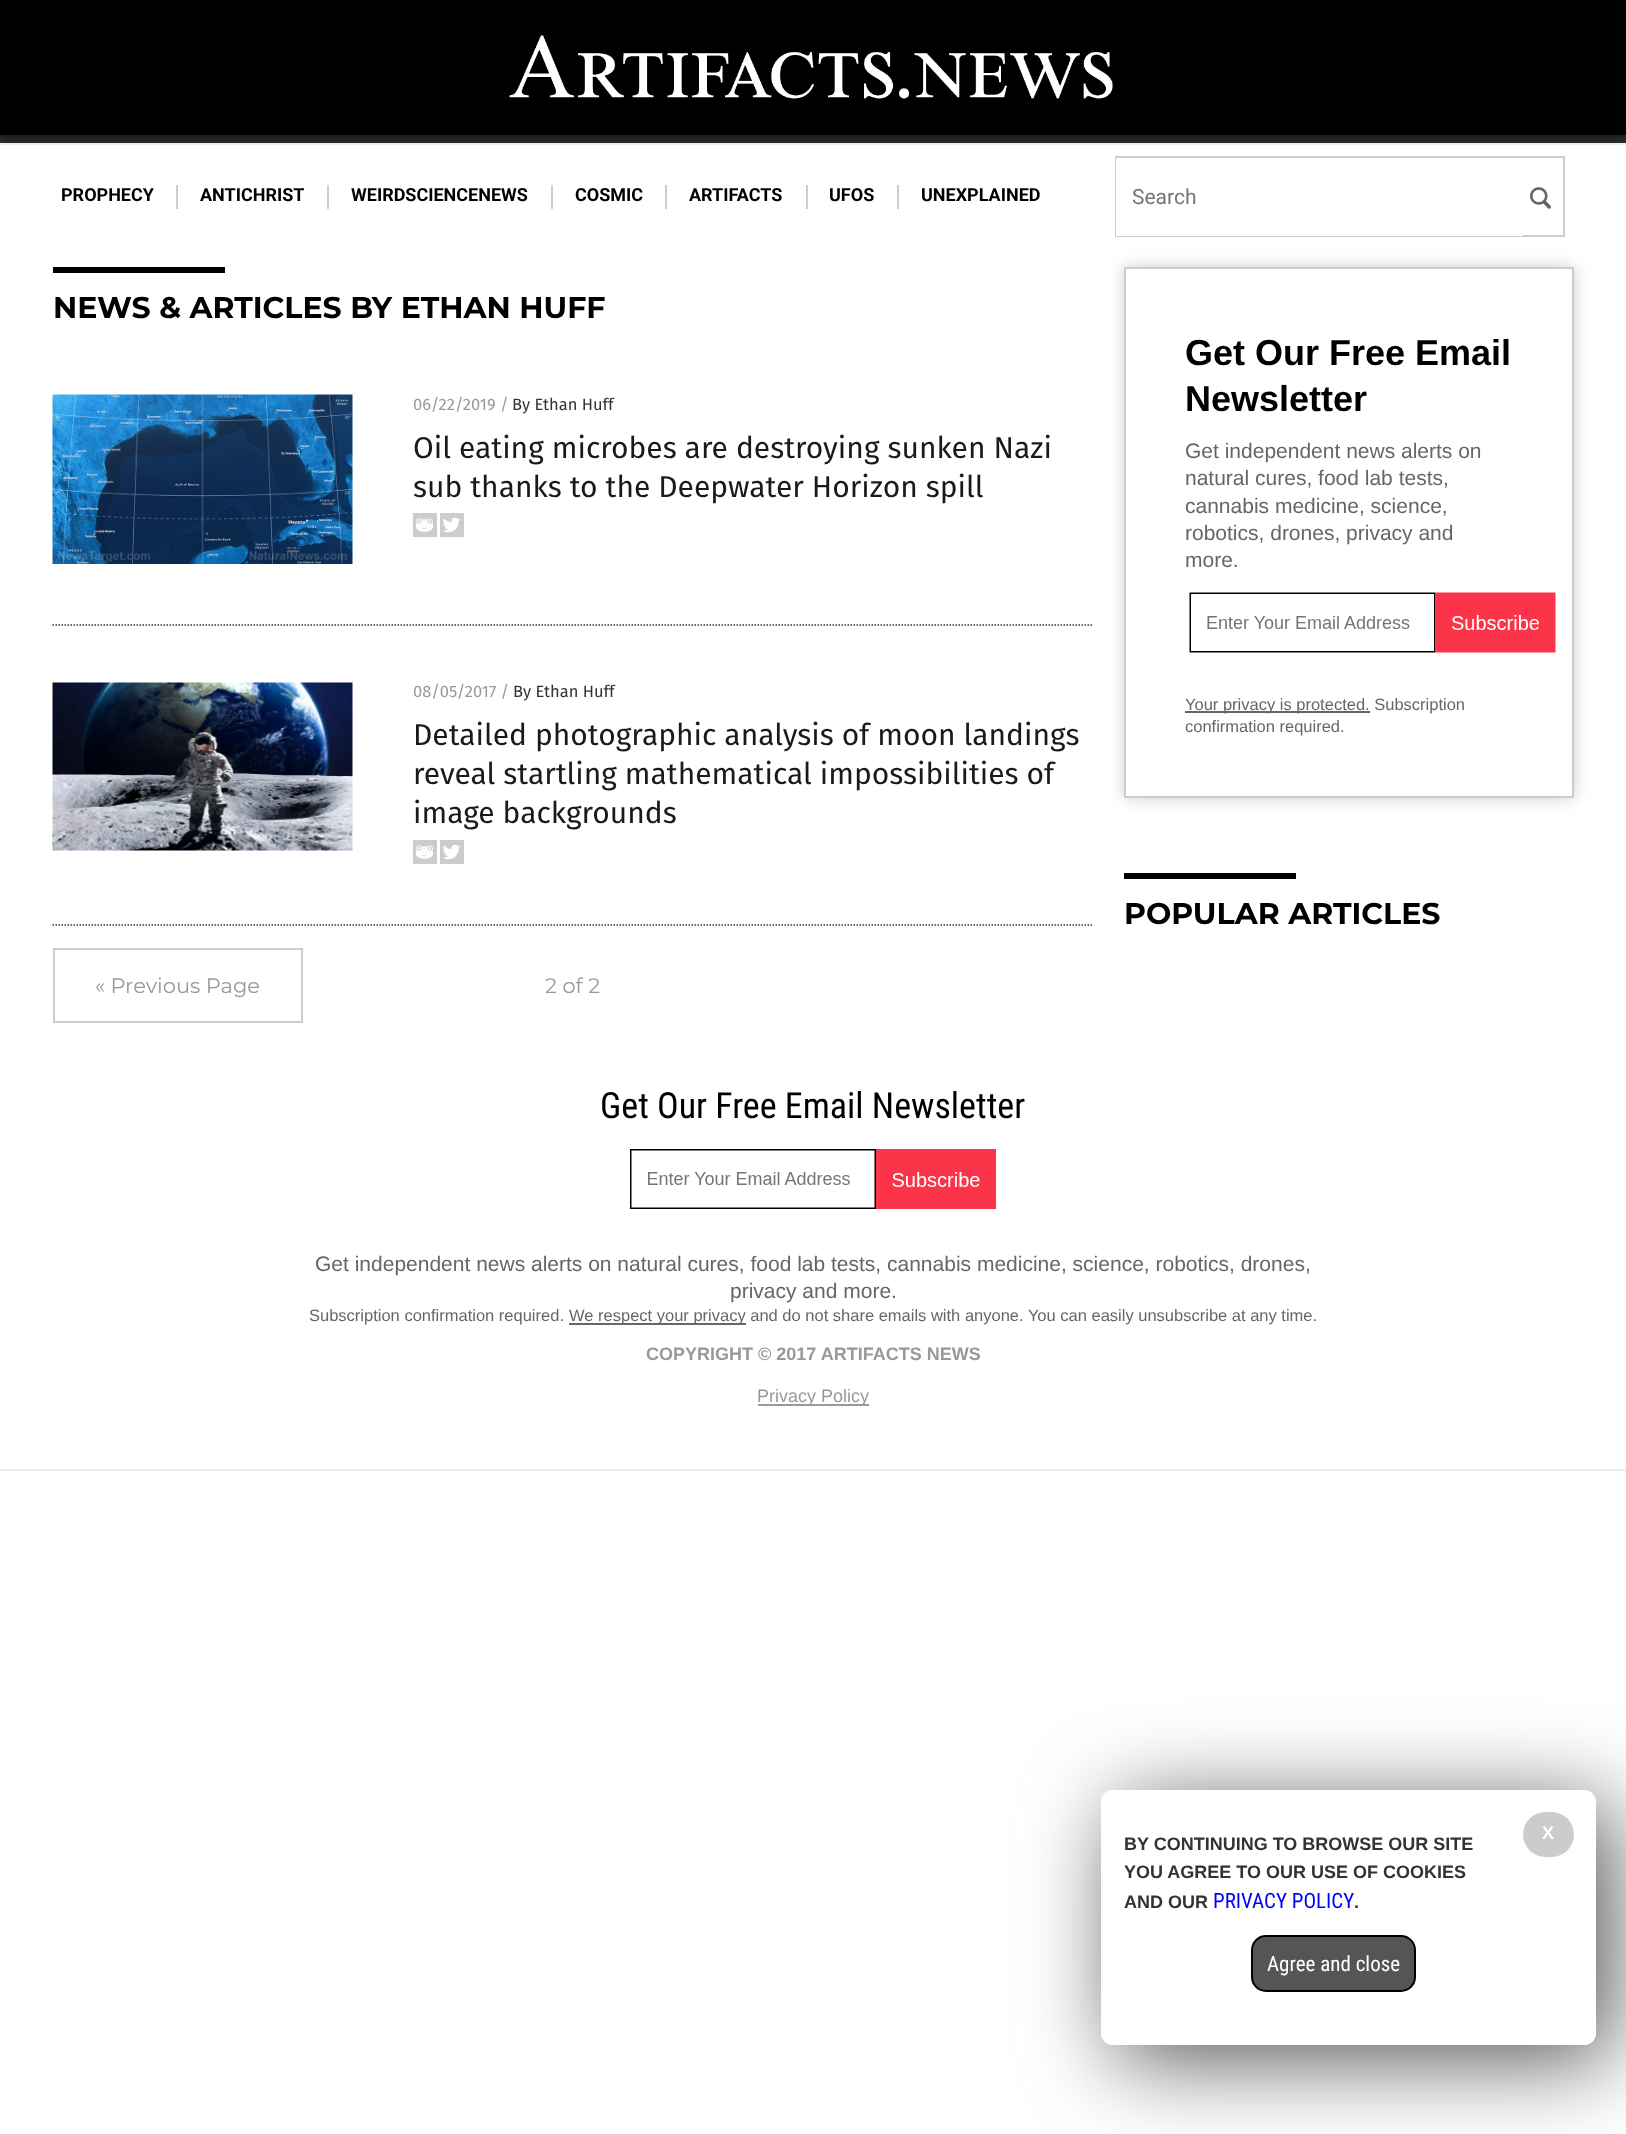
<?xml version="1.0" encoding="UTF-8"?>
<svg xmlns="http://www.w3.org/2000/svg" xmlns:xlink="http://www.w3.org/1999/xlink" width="1626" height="2134">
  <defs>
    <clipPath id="clip1"><path d="M 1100 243 h 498 v 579 h -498 z m 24 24 h 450 v 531 h -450 z" clip-rule="evenodd" /></clipPath>
    <clipPath id="clip2"><path d="M 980 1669 h 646 v 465 h -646 z m 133 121 h 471 c 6.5 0 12 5.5 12 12 v 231 c 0 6.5 -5.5 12 -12 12 h -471 c -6.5 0 -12 -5.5 -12 -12 v -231 c 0 -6.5 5.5 -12 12 -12 z" clip-rule="evenodd" /></clipPath>
  </defs>
  <rect width="100%" height="100%" fill="#ffffff" />
  <rect y="135" width="1626" height="8" fill="#343434" />
  <rect x="-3" y="-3" width="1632" height="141" fill="#000000" fill-opacity="0.75" filter="blur(7.5px)" />
  <rect width="1626" height="135" fill="#000000" />
  <image x="509" y="35" width="604" height="64" xlink:href="image1.png" />
  <rect y="145" width="1626" height="10" fill="#ffffff" />
  <rect y="143" width="1626" height="2" fill="#ececec" />
  <rect y="1469" width="1626" height="2" fill="#ececec" />
  <rect x="176" y="185" width="2" height="24" fill="#cccccc" />
  <rect x="327" y="185" width="2" height="24" fill="#cccccc" />
  <rect x="551" y="185" width="2" height="24" fill="#cccccc" />
  <rect x="665" y="185" width="2" height="24" fill="#cccccc" />
  <rect x="806" y="185" width="2" height="24" fill="#cccccc" />
  <rect x="897" y="185" width="2" height="24" fill="#cccccc" />
  <rect x="1116" y="157" width="448" height="79" fill="none" stroke="#cccccc" stroke-width="2" />
  <rect x="1116" y="158" width="407" height="78" fill="#ffffff" />
  <image x="1530" y="187" width="21" height="22" xlink:href="image2.png" />
  <rect x="53" y="267" width="172" height="6" fill="#000000" />
  <path d="M 52.5 625 h 1041" fill="none" stroke="#343434" stroke-width="1.5" stroke-dasharray="1.5 1.5" />
  <image x="52" y="394" width="301" height="170" xlink:href="image3.png" />
  <image x="413" y="513" width="24" height="24" xlink:href="image4.png" />
  <image x="440" y="513" width="24" height="24" xlink:href="image5.png" />
  <path d="M 52.5 925 h 1041" fill="none" stroke="#343434" stroke-width="1.5" stroke-dasharray="1.5 1.5" />
  <image x="52" y="682" width="301" height="169" xlink:href="image6.png" />
  <image x="413" y="840" width="24" height="24" xlink:href="image4.png" />
  <image x="440" y="840" width="24" height="24" xlink:href="image5.png" />
  <rect x="54" y="949" width="248" height="73" fill="none" stroke="#cccccc" stroke-width="2" />
  <g clip-path="url(#clip1)">
    <rect x="1124" y="267" width="450" height="531" fill="#cccccc" filter="blur(7.5px)" />
  </g>
  <rect x="1125" y="268" width="448" height="529" fill="none" stroke="#cccccc" stroke-width="2" />
  <image x="1189" y="592" width="367" height="61" xlink:href="image7.png" />
  <rect x="1185" y="711" width="185" height="2" fill="#666666" />
  <rect x="1124" y="873" width="172" height="6" fill="#000000" />
  <image x="630" y="1149" width="366" height="60" xlink:href="image8.png" />
  <rect x="569" y="1323" width="177" height="2" fill="#666666" />
  <rect x="758" y="1404" width="111" height="2" fill="#999999" />
  <g clip-path="url(#clip2)">
    <rect x="1116" y="1805" width="495" height="255" rx="12" fill="#555555" filter="blur(45px)" />
  </g>
  <rect x="1101" y="1790" width="495" height="255" rx="12" fill="#ffffff" fill-opacity="0.9" />
  <rect x="1523" y="1812" width="51" height="45" rx="22.5" fill="#cccccc" />
  <rect x="1252" y="1936" width="163" height="55" rx="14" fill="#555555" stroke="#000000" stroke-width="2" />
  <text x="61" y="201" style="font-family: Roboto; font-size: 18px; font-weight: bold; fill: #000000">PROPHECY</text>
  <text x="200" y="201" style="font-family: Roboto; font-size: 18px; font-weight: bold; fill: #000000">ANTICHRIST</text>
  <text x="351" y="201" style="font-family: Roboto; font-size: 18px; font-weight: bold; fill: #000000">WEIRDSCIENCENEWS</text>
  <text x="575" y="201" style="font-family: Roboto; font-size: 18px; font-weight: bold; fill: #000000">COSMIC</text>
  <text x="689" y="201" style="font-family: Roboto; font-size: 18px; font-weight: bold; fill: #000000">ARTIFACTS</text>
  <text x="829" y="201" style="font-family: Roboto; font-size: 18px; font-weight: bold; fill: #000000">UFOS</text>
  <text x="921" y="201" style="font-family: Roboto; font-size: 18px; font-weight: bold; fill: #000000">UNEXPLAINED</text>
  <text x="1132" y="204" style="font-family: Roboto; font-size: 21px; fill: #757575">Search</text>
  <text x="53" y="318" style="font-family: Montserrat; font-size: 30px; font-weight: bold; fill: #000000">NEWS &amp; ARTICLES BY ETHAN HUFF</text>
  <text x="413" y="410" style="font-family: Fira Sans; font-size: 16.5px; fill: #999999">06/22/2019 /</text>
  <text x="512" y="410" style="font-family: Fira Sans; font-size: 16.5px; fill: #333333">By Ethan Huff</text>
  <text x="413" y="458" style="font-family: Fira Sans; font-size: 30px; fill: #1a1a1a">Oil eating microbes are destroying sunken Nazi</text>
  <text x="413" y="497" style="font-family: Fira Sans; font-size: 30px; fill: #1a1a1a">sub thanks to the Deepwater Horizon spill</text>
  <text x="413" y="697" style="font-family: Fira Sans; font-size: 16.5px; fill: #999999">08/05/2017 /</text>
  <text x="513" y="697" style="font-family: Fira Sans; font-size: 16.5px; fill: #333333">By Ethan Huff</text>
  <text x="413" y="745" style="font-family: Fira Sans; font-size: 30px; fill: #1a1a1a">Detailed photographic analysis of moon landings</text>
  <text x="413" y="784" style="font-family: Fira Sans; font-size: 30px; fill: #1a1a1a">reveal startling mathematical impossibilities of</text>
  <text x="413" y="823" style="font-family: Fira Sans; font-size: 30px; fill: #1a1a1a">image backgrounds</text>
  <text x="95" y="993" style="font-family: Montserrat; font-size: 21px; fill: #999999">« Previous Page</text>
  <text x="545" y="993" style="font-family: Montserrat; font-size: 21px; fill: #999999">2 of 2</text>
  <text x="1185" y="365" style="font-family: Liberation Sans; font-size: 36px; font-weight: bold; fill: #000000">Get Our Free Email</text>
  <text x="1185" y="411" style="font-family: Liberation Sans; font-size: 36px; font-weight: bold; fill: #000000">Newsletter</text>
  <text x="1185" y="458" style="font-family: Liberation Sans; font-size: 21px; fill: #666666">Get independent news alerts on</text>
  <text x="1185" y="485" style="font-family: Liberation Sans; font-size: 21px; fill: #666666">natural cures, food lab tests,</text>
  <text x="1185" y="513" style="font-family: Liberation Sans; font-size: 21px; fill: #666666">cannabis medicine, science,</text>
  <text x="1185" y="540" style="font-family: Liberation Sans; font-size: 21px; fill: #666666">robotics, drones, privacy and</text>
  <text x="1185" y="567" style="font-family: Liberation Sans; font-size: 21px; fill: #666666">more.</text>
  <text x="1185" y="710" style="font-family: Liberation Sans; font-size: 16.5px; fill: #666666">Your privacy is protected. Subscription</text>
  <text x="1185" y="732" style="font-family: Liberation Sans; font-size: 16.5px; fill: #666666">confirmation required.</text>
  <text x="1124" y="924" style="font-family: Montserrat; font-size: 30px; font-weight: bold; fill: #000000">POPULAR ARTICLES</text>
  <text x="600" y="1118" style="font-family: Roboto Condensed; font-size: 36px; fill: #000000">Get Our Free Email Newsletter</text>
  <text x="315" y="1271" style="font-family: Liberation Sans; font-size: 21px; fill: #666666">Get independent news alerts on natural cures, food lab tests, cannabis medicine, science, robotics, drones,</text>
  <text x="730" y="1298" style="font-family: Liberation Sans; font-size: 21px; fill: #666666">privacy and more.</text>
  <text x="309" y="1321" style="font-family: Liberation Sans; font-size: 16.5px; fill: #666666">Subscription confirmation required.</text>
  <text x="569" y="1321" style="font-family: Liberation Sans; font-size: 16.5px; fill: #666666">We respect your privacy and do not share emails with anyone. You can easily unsubscribe at any time.</text>
  <text x="646" y="1360" style="font-family: Liberation Sans; font-size: 18px; font-weight: bold; fill: #999999">COPYRIGHT © 2017 ARTIFACTS NEWS</text>
  <text x="757" y="1402" style="font-family: Liberation Sans; font-size: 18px; fill: #999999">Privacy Policy</text>
  <text x="1542" y="1839" style="font-family: Liberation Sans; font-size: 18px; font-weight: bold; fill: #ffffff">X</text>
  <text x="1124" y="1850" style="font-family: Liberation Sans; font-size: 18px; font-weight: bold; fill: #333333">BY CONTINUING TO BROWSE OUR SITE</text>
  <text x="1124" y="1878" style="font-family: Liberation Sans; font-size: 18px; font-weight: bold; fill: #333333">YOU AGREE TO OUR USE OF COOKIES</text>
  <text x="1124" y="1908" style="font-family: Liberation Sans; font-size: 18px; font-weight: bold; fill: #333333">AND OUR</text>
  <text x="1213" y="1908" style="font-family: Roboto Condensed; font-size: 21px; fill: #0000ff">PRIVACY POLICY</text>
  <text x="1354" y="1908" style="font-family: Liberation Sans; font-size: 18px; font-weight: bold; fill: #333333">.</text>
  <text x="1267" y="1971" style="font-family: Roboto Condensed; font-size: 21px; fill: #ffffff">Agree and close</text>
</svg>
